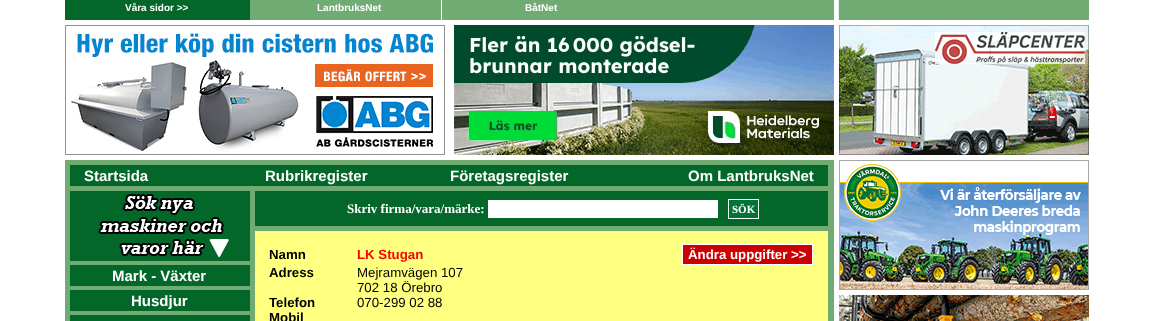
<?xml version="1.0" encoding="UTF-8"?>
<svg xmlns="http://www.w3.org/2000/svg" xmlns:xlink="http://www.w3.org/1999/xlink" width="1153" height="321">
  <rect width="100%" height="100%" fill="#ffffff" />
  <rect x="250" width="584" height="20" fill="#71ab74" />
  <rect x="65" width="185" height="20" fill="#036729" />
  <rect x="441" width="1" height="20" fill="#ffffff" />
  <image x="837" y="0" width="252" height="20" xlink:href="image1.png" />
  <image x="65" y="25" width="380" height="130" xlink:href="image2.png" />
  <image x="454" y="25" width="380" height="130" xlink:href="image3.png" />
  <image x="839" y="25" width="250" height="130" xlink:href="image4.png" />
  <rect x="65" y="160" width="769" height="161" fill="#71ab74" />
  <rect x="70" y="165" width="758" height="21" fill="#036729" />
  <rect x="70" y="191" width="180" height="70" fill="#036729" />
  <image x="98" y="194" width="131" height="63" xlink:href="image5.png" />
  <rect x="70" y="265" width="180" height="21" fill="#036729" />
  <rect x="70" y="290" width="180" height="21" fill="#036729" />
  <rect x="70" y="315" width="180" height="6" fill="#036729" />
  <rect x="255" y="191" width="573" height="35" fill="#036729" />
  <rect x="488" y="200" width="230" height="18" fill="#ffffff" />
  <rect x="728.5" y="199.5" width="30" height="19" fill="#007336" stroke="#ffffff" />
  <rect x="255" y="231" width="573" height="90" fill="#ffff80" />
  <rect x="682.5" y="244.5" width="130" height="20" fill="#cc0000" stroke="#ffffff" />
  <image x="839" y="160" width="250" height="130" xlink:href="image6.png" />
  <image x="839" y="295" width="250" height="26" xlink:href="image7.png" />
  <text x="125" y="11" style="font-family: Liberation Sans; font-size: 10px; font-weight: bold; fill: #ffffff">Våra sidor &gt;&gt;</text>
  <text x="317" y="11" style="font-family: Liberation Sans; font-size: 10px; font-weight: bold; fill: #ffffff">LantbruksNet</text>
  <text x="525" y="11" style="font-family: Liberation Sans; font-size: 10px; font-weight: bold; fill: #ffffff">BåtNet</text>
  <text x="84" y="181" style="font-family: Liberation Sans; font-size: 15px; font-weight: bold; fill: #ffffff">Startsida</text>
  <text x="265" y="181" style="font-family: Liberation Sans; font-size: 15px; font-weight: bold; fill: #ffffff">Rubrikregister</text>
  <text x="450" y="181" style="font-family: Liberation Sans; font-size: 15px; font-weight: bold; fill: #ffffff">Företagsregister</text>
  <text x="688" y="181" style="font-family: Liberation Sans; font-size: 15px; font-weight: bold; fill: #ffffff">Om LantbruksNet</text>
  <text x="112" y="281" style="font-family: Liberation Sans; font-size: 15px; font-weight: bold; fill: #ffffff">Mark - Växter</text>
  <text x="131" y="306" style="font-family: Liberation Sans; font-size: 15px; font-weight: bold; fill: #ffffff">Husdjur</text>
  <text x="347" y="213" style="font-family: Liberation Serif; font-size: 13px; font-weight: bold; fill: #ffffff">Skriv firma/vara/märke:</text>
  <text x="732" y="213" style="font-family: Liberation Serif; font-size: 11px; font-weight: bold; fill: #ffffff">SÖK</text>
  <text x="269" y="259" style="font-family: Liberation Sans; font-size: 13.25px; font-weight: bold; fill: #000000">Namn</text>
  <text x="357" y="259" style="font-family: Liberation Sans; font-size: 13.25px; font-weight: bold; fill: #ff0000">LK Stugan</text>
  <text x="688" y="259" style="font-family: Liberation Sans; font-size: 13.25px; font-weight: bold; fill: #ffffff">Ändra uppgifter &gt;&gt;</text>
  <text x="269" y="277" style="font-family: Liberation Sans; font-size: 13.25px; font-weight: bold; fill: #000000">Adress</text>
  <text x="357" y="277" style="font-family: Liberation Sans; font-size: 13.25px; fill: #000000">Mejramvägen 107</text>
  <text x="357" y="292" style="font-family: Liberation Sans; font-size: 13.25px; fill: #000000">702 18 Örebro</text>
  <text x="269" y="307" style="font-family: Liberation Sans; font-size: 13.25px; font-weight: bold; fill: #000000">Telefon</text>
  <text x="357" y="307" style="font-family: Liberation Sans; font-size: 13.25px; fill: #000000">070-299 02 88</text>
  <text x="269" y="322" style="font-family: Liberation Sans; font-size: 13.25px; font-weight: bold; fill: #000000">Mobil</text>
</svg>
